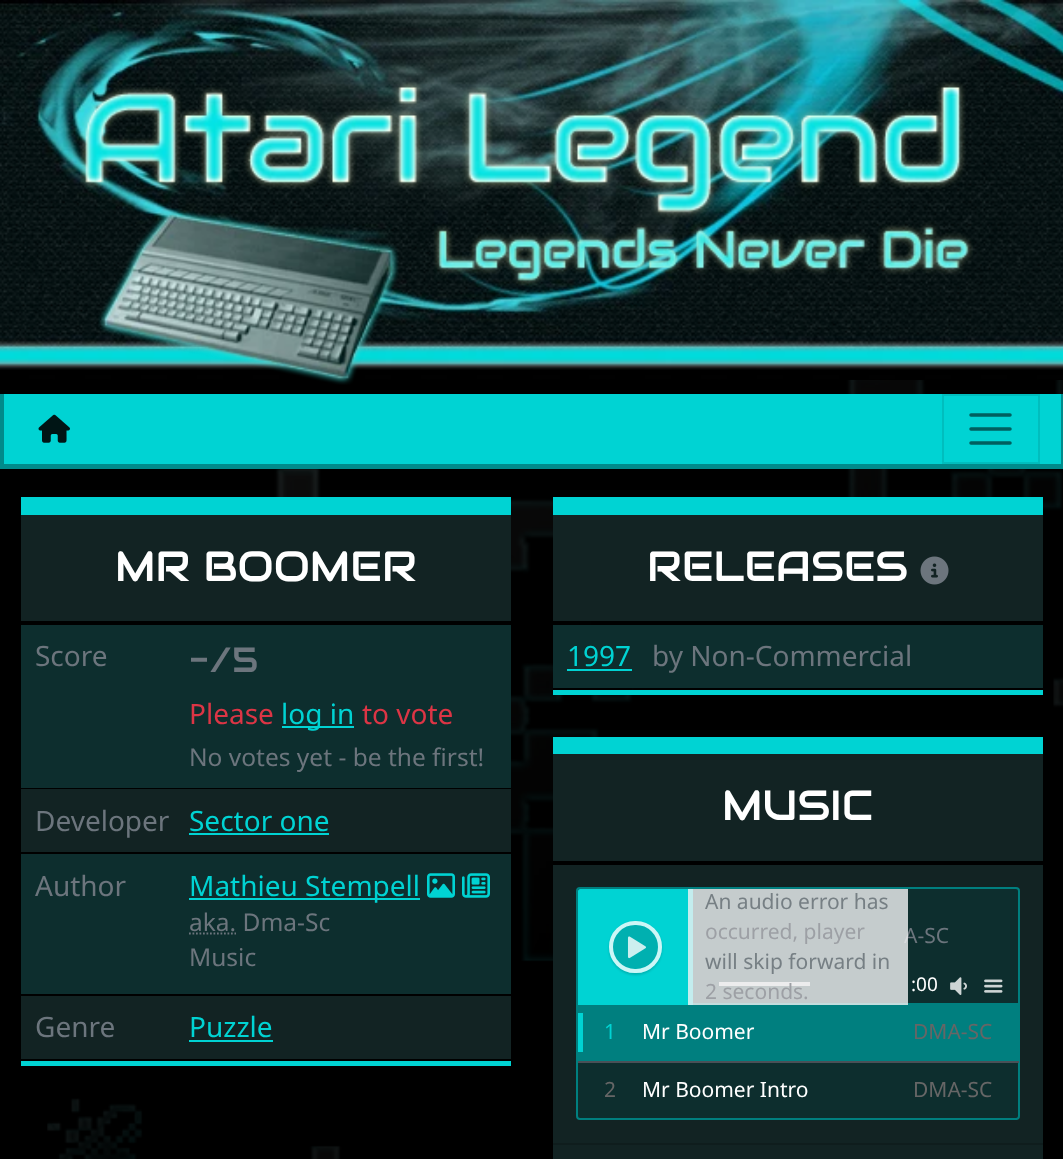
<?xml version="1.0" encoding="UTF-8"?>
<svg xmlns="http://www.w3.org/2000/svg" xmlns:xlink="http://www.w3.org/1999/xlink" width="1063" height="1159">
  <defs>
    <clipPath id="clip1"><path d="M 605 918 h 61 v 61 h -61 z m 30 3 h 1 c 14.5 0 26 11.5 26 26 c 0 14.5 -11.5 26 -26 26 h -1 c -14.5 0 -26 -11.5 -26 -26 c 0 -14.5 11.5 -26 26 -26 z" clip-rule="evenodd" /></clipPath>
  </defs>
  <rect width="100%" height="100%" fill="#000000" />
  <image x="47" y="379" width="1016" height="780" xlink:href="image1.png" />
  <image x="0" y="367" width="1063" height="13" xlink:href="image2.png" />
  <image x="0" y="0" width="1063" height="367" xlink:href="image3.png" />
  <image x="80" y="81" width="893" height="304" xlink:href="image4.png" />
  <rect x="4" y="394" width="1057" height="70" fill="#00d3d3" />
  <rect x="1061" y="394" width="2" height="75" fill="#008b8b" />
  <rect y="464" width="1063" height="5" fill="#008b8b" />
  <rect y="394" width="4" height="75" fill="#008b8b" />
  <image x="38" y="414" width="32" height="29" xlink:href="image5.png" />
  <rect x="943" y="395" width="96" height="68" fill="none" stroke="#00bebe" stroke-width="2" />
  <path d="M 971 415 h 39 m -39 14 h 39 m -39 14 h 39" fill="none" stroke="#005f5f" stroke-width="3.5" stroke-linecap="round" />
  <rect x="21" y="515" width="490" height="544" fill="#122323" />
  <rect x="21" y="497" width="490" height="18" fill="#00d3d3" />
  <rect x="21" y="1061" width="490" height="5" fill="#00d3d3" />
  <rect x="21" y="621" width="490" height="4" fill="#000000" />
  <rect x="21" y="625" width="490" height="163" fill="#0d2e2e" />
  <rect x="21" y="788" width="490" height="1" fill="#000000" />
  <rect x="282" y="726" width="72" height="2" fill="#00d3d3" />
  <rect x="21" y="852" width="490" height="2" fill="#000000" />
  <rect x="189" y="833" width="140" height="2" fill="#00d3d3" />
  <rect x="21" y="854" width="490" height="140" fill="#0d2e2e" />
  <rect x="21" y="994" width="490" height="2" fill="#000000" />
  <rect x="189" y="898" width="231" height="2" fill="#00d3d3" />
  <image x="427" y="873" width="28" height="25" xlink:href="image6.png" />
  <image x="462" y="873" width="28" height="25" xlink:href="image7.png" />
  <path d="M 189 933.5 h 47" fill="none" stroke="#6c757d" stroke-width="1.8" stroke-dasharray="1.75 1.75" />
  <rect x="189" y="1040" width="84" height="2" fill="#00d3d3" />
  <rect x="553" y="515" width="490" height="106" fill="#122323" />
  <rect x="553" y="497" width="490" height="18" fill="#00d3d3" />
  <rect x="553" y="690" width="490" height="5" fill="#00d3d3" />
  <rect x="591" y="621" width="225" height="4" fill="#000000" />
  <image x="920" y="556" width="29" height="29" xlink:href="image8.png" />
  <rect x="553" y="625" width="490" height="63" fill="#0d2e2e" />
  <rect x="553" y="688" width="79" height="2" fill="#000000" />
  <rect x="567" y="669" width="65" height="2" fill="#00d3d3" />
  <rect x="553" y="754" width="490" height="405" fill="#122323" />
  <rect x="553" y="737" width="490" height="17" fill="#00d3d3" />
  <rect x="553" y="861" width="490" height="4" fill="#000000" />
  <rect x="577" y="888" width="442" height="231" rx="3" fill="#0d2e2e" stroke="#007f7f" stroke-width="2" />
  <path d="M 580 889 h 113 v 116 h -115 v -114 c 0 -1 1 -2 2 -2 z" fill="#00d3d3" />
  <g clip-path="url(#clip1)">
    <rect x="609" y="922" width="53" height="53" rx="26.5" fill="#002a2a" fill-opacity="0.2" filter="blur(1px)" />
  </g>
  <rect x="611" y="923" width="49" height="48" rx="24" fill="#002a2a" fill-opacity="0.2" stroke="#ccf6f6" stroke-width="4" />
  <image x="627" y="936" width="19" height="23" xlink:href="image9.png" />
  <rect x="693" y="1003" width="326" height="2" fill="#007f7f" />
  <rect x="719" y="982" width="91" height="4" fill="#cdcdcd" />
  <image x="950" y="977" width="17" height="18" xlink:href="image10.png" />
  <image x="984" y="979" width="19" height="14" xlink:href="image11.png" />
  <rect x="578" y="1005" width="440" height="56" fill="#007f7f" />
  <rect x="578" y="1013" width="5" height="39" fill="#00d3d3" />
  <rect x="578" y="1061" width="441" height="2" fill="#495057" />
  <rect x="553" y="1143" width="490" height="2" fill="#0f1d1d" />
  <text x="115" y="581" style="font-family: Audiowide; font-size: 42px; fill: #ffffff">MR BOOMER</text>
  <text x="35" y="666" style="font-family: Noto Sans; font-size: 28px; fill: #6c757d">Score</text>
  <text x="189" y="672" style="font-family: Audiowide; font-size: 35px; fill: #6c757d">-/5</text>
  <text x="189" y="724" style="font-family: Noto Sans; font-size: 28px; fill: #dc3545">Please</text>
  <text x="281" y="724" style="font-family: Noto Sans; font-size: 28px; fill: #00d3d3">log in</text>
  <text x="362" y="724" style="font-family: Noto Sans; font-size: 28px; fill: #dc3545">to vote</text>
  <text x="189" y="766" style="font-family: Noto Sans; font-size: 24.5px; fill: #6c757d">No votes yet - be the first!</text>
  <text x="35" y="831" style="font-family: Noto Sans; font-size: 28px; fill: #6c757d">Developer</text>
  <text x="189" y="831" style="font-family: Noto Sans; font-size: 28px; fill: #00d3d3">Sector one</text>
  <text x="35" y="896" style="font-family: Noto Sans; font-size: 28px; fill: #6c757d">Author</text>
  <text x="189" y="896" style="font-family: Noto Sans; font-size: 28px; fill: #00d3d3">Mathieu Stempell</text>
  <text x="189" y="931" style="font-family: Noto Sans; font-size: 24.5px; fill: #6c757d">aka. Dma-Sc</text>
  <text x="189" y="966" style="font-family: Noto Sans; font-size: 24.5px; fill: #6c757d">Music</text>
  <text x="35" y="1037" style="font-family: Noto Sans; font-size: 28px; fill: #6c757d">Genre</text>
  <text x="189" y="1037" style="font-family: Noto Sans; font-size: 28px; fill: #00d3d3">Puzzle</text>
  <text x="647" y="581" style="font-family: Audiowide; font-size: 42px; fill: #ffffff">RELEASES</text>
  <text x="567" y="666" style="font-family: Noto Sans; font-size: 28px; fill: #00d3d3">1997</text>
  <text x="652" y="666" style="font-family: Noto Sans; font-size: 28px; fill: #6c757d">by Non-Commercial</text>
  <text x="722" y="820" style="font-family: Audiowide; font-size: 42px; fill: #ffffff">MUSIC</text>
  <text x="904" y="943" style="font-family: Noto Sans; font-size: 21px; fill: #6c757d">A-SC</text>
  <rect x="688" y="889" width="220" height="116" fill="#f4f4f5" fill-opacity="0.8" />
  <text x="705" y="999" style="font-family: Noto Sans; font-size: 21px; fill: #9da0a5">2 seconds.</text>
  <text x="705" y="969" style="font-family: Noto Sans; font-size: 21px; fill: #767f84">will skip forward in</text>
  <text x="705" y="939" style="font-family: Noto Sans; font-size: 21px; fill: #9da0a5">occurred, player</text>
  <text x="705" y="909" style="font-family: Noto Sans; font-size: 21px; fill: #767f84">An audio error has</text>
  <text x="911" y="991" style="font-family: Noto Sans; font-size: 19px; fill: #ffffff">:00</text>
  <text x="604" y="1039" style="font-family: Noto Sans; font-size: 21px; fill: #00d3d3">1</text>
  <text x="642" y="1039" style="font-family: Noto Sans; font-size: 21px; fill: #ffffff">Mr Boomer</text>
  <text x="913" y="1039" style="font-family: Noto Sans; font-size: 21px; fill: #666666">DMA-SC</text>
  <text x="604" y="1097" style="font-family: Noto Sans; font-size: 21px; fill: #666666">2</text>
  <text x="642" y="1097" style="font-family: Noto Sans; font-size: 21px; fill: #ffffff">Mr Boomer Intro</text>
  <text x="913" y="1097" style="font-family: Noto Sans; font-size: 21px; fill: #666666">DMA-SC</text>
</svg>
